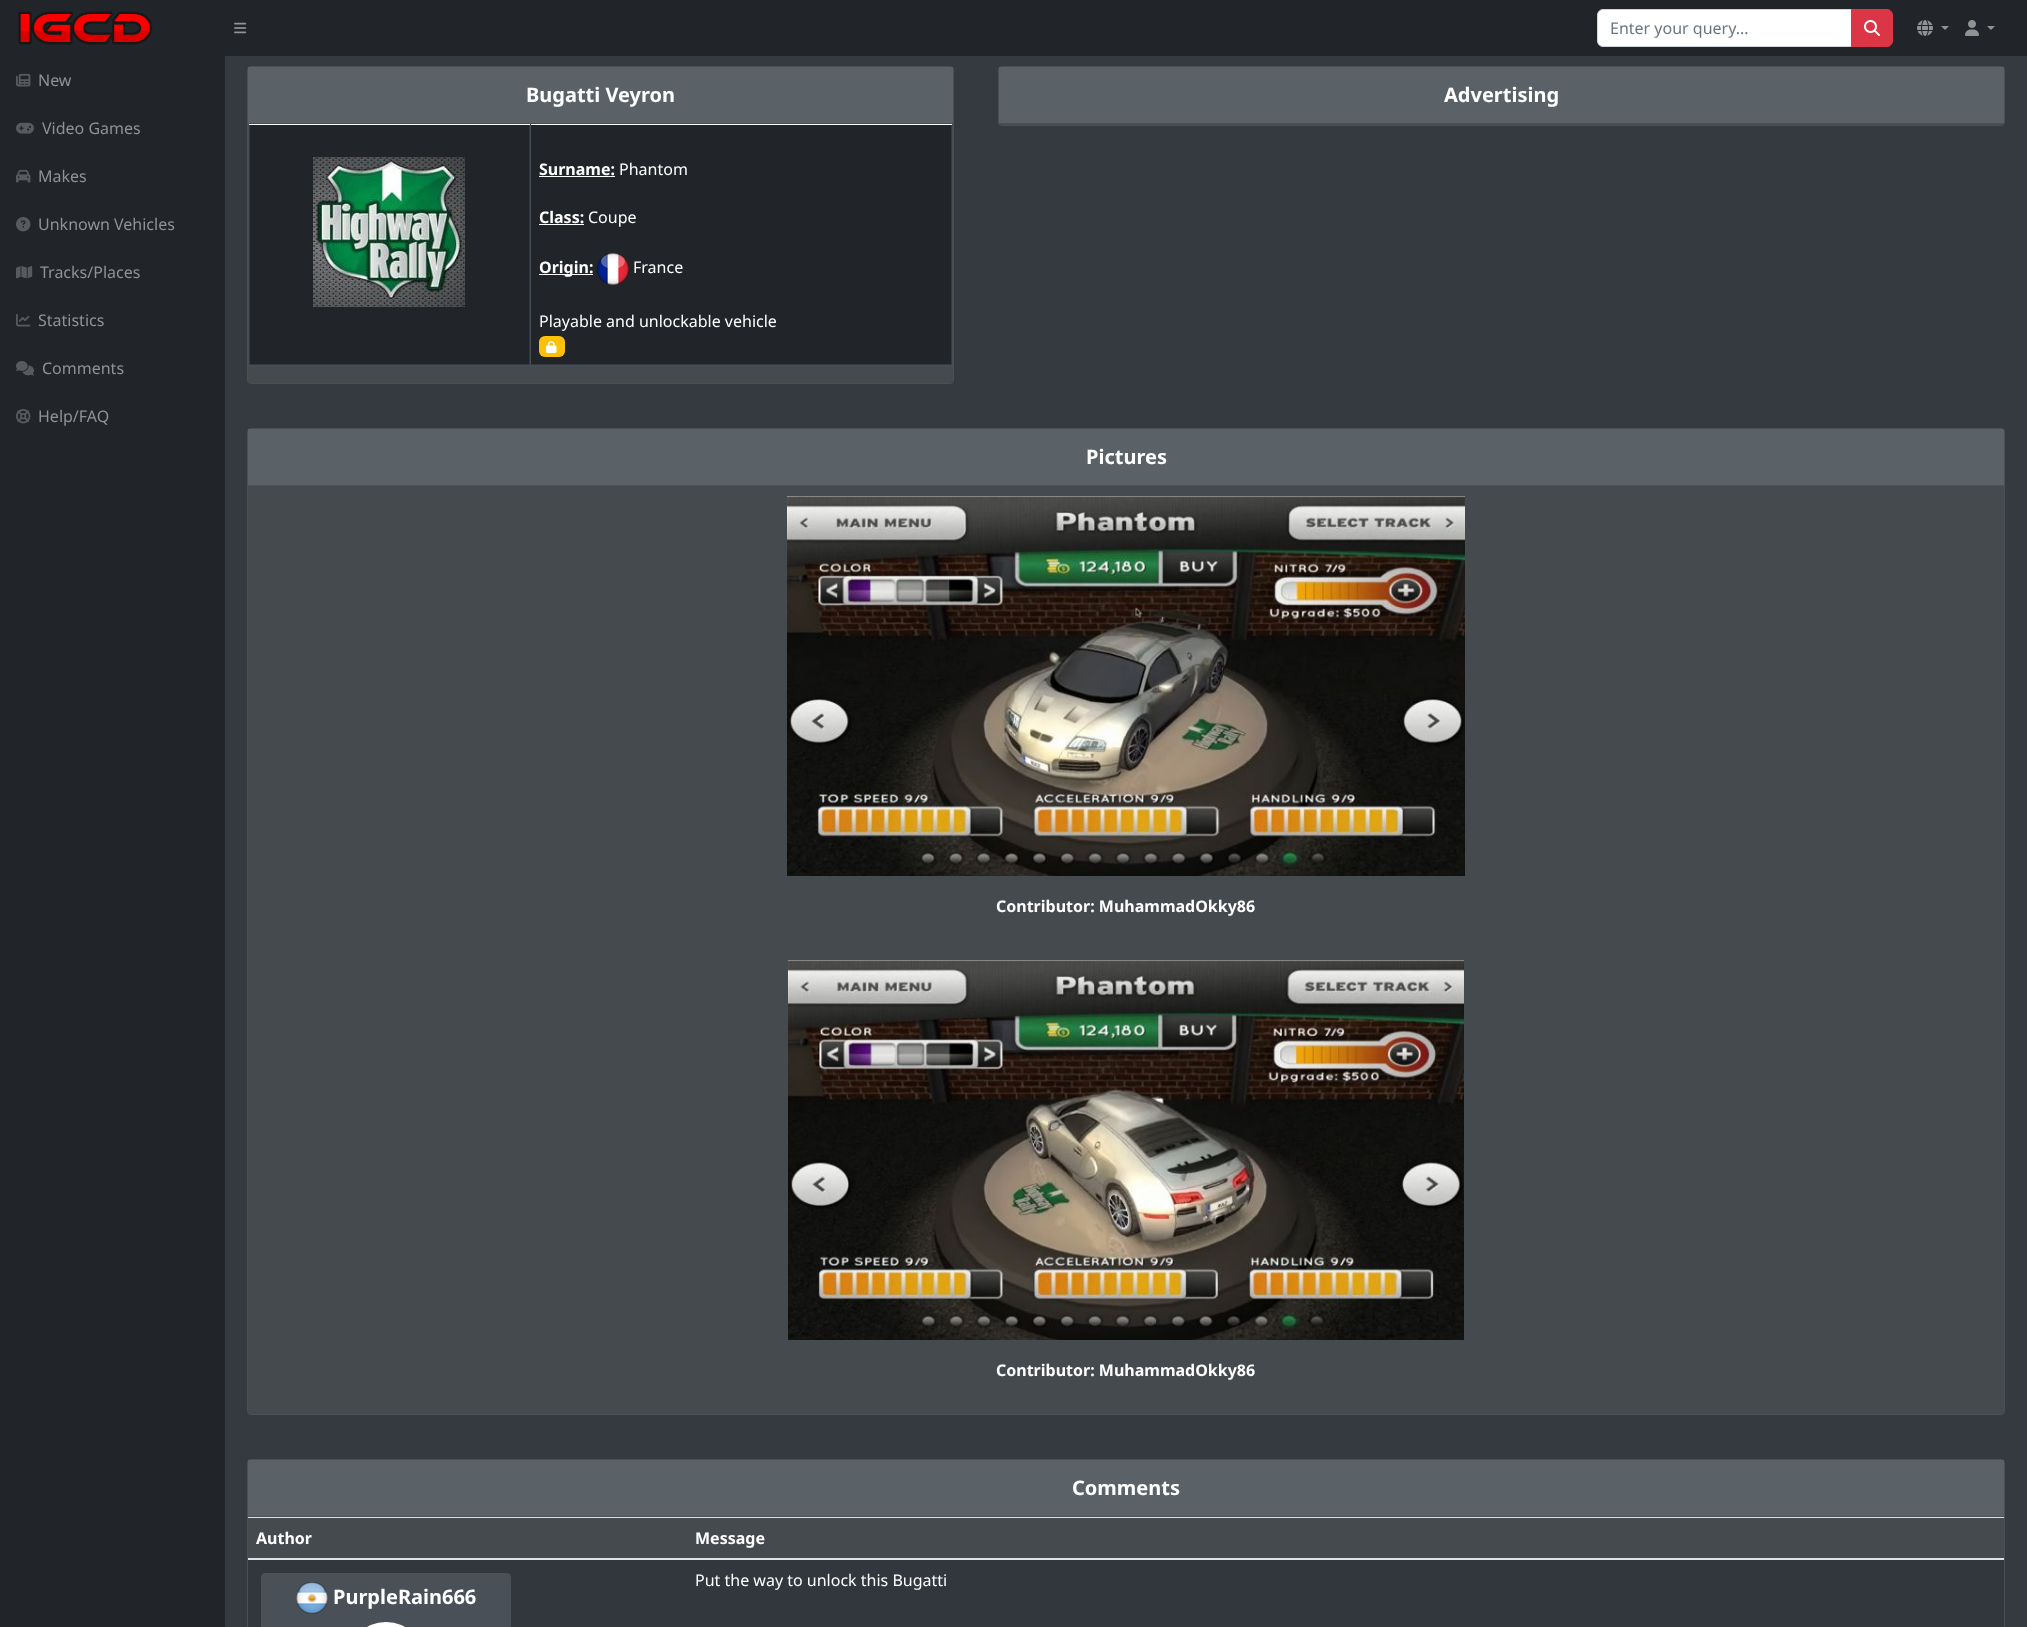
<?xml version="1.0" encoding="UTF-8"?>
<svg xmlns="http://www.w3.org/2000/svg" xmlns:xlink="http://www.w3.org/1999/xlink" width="2027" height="1627">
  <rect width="100%" height="100%" fill="#343a40" />
  <rect width="2027" height="56" fill="#212529" />
  <image x="18" y="11" width="135" height="34" xlink:href="image1.png" />
  <image x="234" y="22" width="13" height="12" xlink:href="image2.png" />
  <path d="M 1603 9.5 h 248.5 v 37 h -248.5 c -3 0 -5.5 -2.5 -5.5 -5.5 v -26 c 0 -3 2.5 -5.5 5.5 -5.5 z" fill="#ffffff" stroke="#ced4da" />
  <path d="M 1851.5 9.5 h 35.5 c 3 0 5.5 2.5 5.5 5.5 v 26 c 0 3 -2.5 5.5 -5.5 5.5 h -35.5 z" fill="#dc3545" stroke="#dc3545" />
  <image x="1864" y="20" width="16" height="16" xlink:href="image3.png" />
  <image x="1917" y="20" width="16" height="16" xlink:href="image4.png" />
  <path d="M 1941 26 h 8 l -4 4 z" fill="#909294" />
  <image x="1965" y="20" width="14" height="16" xlink:href="image5.png" />
  <path d="M 1987 26 h 8 l -4 4 z" fill="#909294" />
  <rect y="56" width="225" height="1571" fill="#212529" />
  <image x="16" y="73" width="15" height="14" xlink:href="image6.png" />
  <image x="16" y="122" width="18" height="12" xlink:href="image7.png" />
  <image x="16" y="169" width="15" height="14" xlink:href="image8.png" />
  <image x="16" y="217" width="15" height="15" xlink:href="image9.png" />
  <image x="16" y="266" width="17" height="13" xlink:href="image10.png" />
  <image x="16" y="314" width="15" height="13" xlink:href="image11.png" />
  <image x="16" y="361" width="18" height="15" xlink:href="image12.png" />
  <image x="16" y="409" width="15" height="15" xlink:href="image13.png" />
  <rect x="247.5" y="66.5" width="706" height="317" rx="3.5" fill="none" stroke="#495057" />
  <rect x="248" y="67" width="705" height="56" fill="#5a6268" />
  <rect x="248" y="123" width="705" height="1" fill="#495057" />
  <rect x="248" y="367" width="705" height="16" fill="#454a4f" />
  <rect x="248" y="124" width="705" height="1" fill="#ffffff" />
  <rect x="250" y="125" width="279" height="239" fill="#212529" />
  <rect x="248" y="124" width="1" height="243" fill="#454d55" />
  <image x="313" y="157" width="152" height="150" xlink:href="image14.png" />
  <rect x="531" y="125" width="420" height="239" fill="#212529" />
  <rect x="952" y="124" width="1" height="243" fill="#454d55" />
  <rect x="530" y="124" width="1" height="243" fill="#454d55" />
  <rect x="248" y="365" width="705" height="2" fill="#454d55" />
  <rect x="539" y="176" width="76" height="1" fill="#ffffff" />
  <rect x="539" y="224" width="45" height="1" fill="#ffffff" />
  <rect x="539" y="274" width="54" height="1" fill="#ffffff" />
  <image x="597" y="253" width="32" height="32" xlink:href="image15.png" />
  <rect x="539" y="336" width="26" height="21" rx="6" fill="#ffc107" />
  <image x="546" y="341" width="11" height="12" xlink:href="image16.png" />
  <rect x="998.5" y="66.5" width="1006" height="59" rx="3.5" fill="none" stroke="#495057" />
  <rect x="999" y="67" width="1005" height="56" fill="#5a6268" />
  <rect x="999" y="123" width="1005" height="1" fill="#495057" />
  <rect x="999" y="124" width="1005" height="1" fill="#454a4f" />
  <rect x="247.5" y="428.5" width="1757" height="986" rx="3.5" fill="none" stroke="#495057" />
  <rect x="248" y="429" width="1756" height="56" fill="#5a6268" />
  <rect x="248" y="485" width="1756" height="1" fill="#495057" />
  <rect x="248" y="486" width="1756" height="928" fill="#454a4f" />
  <image x="787" y="496" width="678" height="380" xlink:href="image17.png" />
  <image x="788" y="960" width="676" height="380" xlink:href="image18.png" />
  <rect x="247.5" y="1459.5" width="1757" height="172" rx="3.5" fill="#454a4f" stroke="#495057" />
  <rect x="248" y="1460" width="1756" height="56" fill="#5a6268" />
  <rect x="248" y="1516" width="1756" height="1" fill="#495057" />
  <rect x="248" y="1517" width="1756" height="1" fill="#dee2e6" />
  <rect x="248" y="1558" width="1756" height="2" fill="#dee2e6" />
  <rect x="248" y="1560" width="1756" height="67" fill="#31373d" />
  <rect x="261.5" y="1573.5" width="249" height="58" rx="3.5" fill="#495057" stroke="#495057" />
  <image x="296" y="1582" width="32" height="32" xlink:href="image19.png" />
  <image x="367" y="1622" width="38" height="5" xlink:href="image20.png" />
  <text x="1610" y="34" style="font-family: Noto Sans; font-size: 16px; fill: #6c757d">Enter your query...</text>
  <text x="38" y="86" style="font-family: Noto Sans; font-size: 16px; fill: #909294">New</text>
  <text x="42" y="134" style="font-family: Noto Sans; font-size: 16px; fill: #909294">Video Games</text>
  <text x="38" y="182" style="font-family: Noto Sans; font-size: 16px; fill: #909294">Makes</text>
  <text x="38" y="230" style="font-family: Noto Sans; font-size: 16px; fill: #909294">Unknown Vehicles</text>
  <text x="40" y="278" style="font-family: Noto Sans; font-size: 16px; fill: #909294">Tracks/Places</text>
  <text x="38" y="326" style="font-family: Noto Sans; font-size: 16px; fill: #909294">Statistics</text>
  <text x="42" y="374" style="font-family: Noto Sans; font-size: 16px; fill: #909294">Comments</text>
  <text x="38" y="422" style="font-family: Noto Sans; font-size: 16px; fill: #909294">Help/FAQ</text>
  <text x="526" y="102" style="font-family: Noto Sans; font-size: 20px; font-weight: bold; fill: #ffffff">Bugatti Veyron</text>
  <text x="539" y="175" style="font-family: Noto Sans; font-size: 16px; font-weight: bold; fill: #ffffff">Surname:</text>
  <text x="619" y="175" style="font-family: Noto Sans; font-size: 16px; fill: #ffffff">Phantom</text>
  <text x="539" y="223" style="font-family: Noto Sans; font-size: 16px; font-weight: bold; fill: #ffffff">Class:</text>
  <text x="588" y="223" style="font-family: Noto Sans; font-size: 16px; fill: #ffffff">Coupe</text>
  <text x="539" y="273" style="font-family: Noto Sans; font-size: 16px; font-weight: bold; fill: #ffffff">Origin:</text>
  <text x="633" y="273" style="font-family: Noto Sans; font-size: 16px; fill: #ffffff">France</text>
  <text x="539" y="327" style="font-family: Noto Sans; font-size: 16px; fill: #ffffff">Playable and unlockable vehicle</text>
  <text x="1444" y="102" style="font-family: Noto Sans; font-size: 20px; font-weight: bold; fill: #ffffff">Advertising</text>
  <text x="1086" y="464" style="font-family: Noto Sans; font-size: 20px; font-weight: bold; fill: #ffffff">Pictures</text>
  <text x="996" y="912" style="font-family: Noto Sans; font-size: 16px; font-weight: bold; fill: #ffffff">Contributor: MuhammadOkky86</text>
  <text x="996" y="1376" style="font-family: Noto Sans; font-size: 16px; font-weight: bold; fill: #ffffff">Contributor: MuhammadOkky86</text>
  <text x="1072" y="1495" style="font-family: Noto Sans; font-size: 20px; font-weight: bold; fill: #ffffff">Comments</text>
  <text x="256" y="1544" style="font-family: Noto Sans; font-size: 16px; font-weight: bold; fill: #ffffff">Author</text>
  <text x="695" y="1544" style="font-family: Noto Sans; font-size: 16px; font-weight: bold; fill: #ffffff">Message</text>
  <text x="695" y="1586" style="font-family: Noto Sans; font-size: 16px; fill: #ffffff">Put the way to unlock this Bugatti</text>
  <text x="333" y="1604" style="font-family: Noto Sans; font-size: 20px; font-weight: bold; fill: #ffffff">PurpleRain666</text>
</svg>
